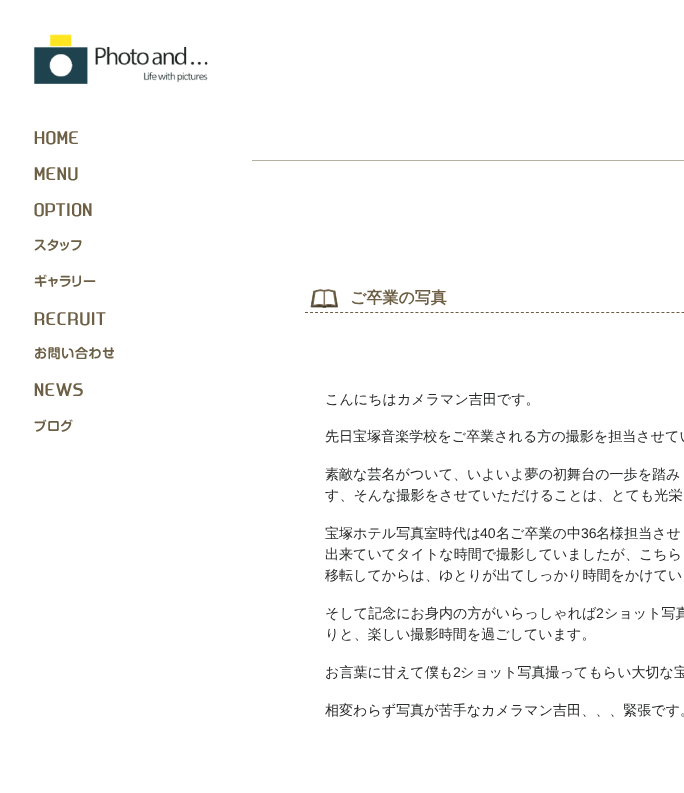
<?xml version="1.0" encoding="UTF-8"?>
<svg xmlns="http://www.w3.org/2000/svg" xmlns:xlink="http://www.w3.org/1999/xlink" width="684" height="793">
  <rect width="100%" height="100%" fill="#ffffff" />
  <image x="33" y="34" width="175" height="50" xlink:href="image1.png" />
  <image x="34" y="131" width="44" height="14" xlink:href="image2.png" />
  <image x="34" y="167" width="44" height="14" xlink:href="image3.png" />
  <image x="34" y="202" width="63" height="15" xlink:href="image4.png" />
  <image x="34" y="239" width="48" height="12" xlink:href="image5.png" />
  <image x="34" y="274" width="62" height="13" xlink:href="image6.png" />
  <image x="34" y="312" width="72" height="14" xlink:href="image7.png" />
  <image x="35" y="346" width="79" height="14" xlink:href="image8.png" />
  <image x="34" y="383" width="49" height="13" xlink:href="image9.png" />
  <image x="34" y="419" width="39" height="13" xlink:href="image10.png" />
  <rect x="252" y="160" width="432" height="1" fill="#b7b0a2" />
  <image x="310" y="289" width="28" height="19" xlink:href="image11.png" />
  <path d="M 305 312.5 h 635" fill="none" stroke="#6c5f45" stroke-dasharray="3 2.02" />
  <text x="350" y="303" style="font-family: WenQuanYi Zen Hei; font-size: 16px; font-weight: bold; fill: #6c5f45">ご卒業の写真</text>
  <text x="325" y="404" style="font-family: WenQuanYi Zen Hei; font-size: 14.05px; font-weight: 500; fill: #292a2a">こんにちはカメラマン吉田です。</text>
  <text x="325" y="441" style="font-family: WenQuanYi Zen Hei; font-size: 14.05px; font-weight: 500; fill: #292a2a">先日宝塚音楽学校をご卒業される方の撮影を担当させてい</text>
  <text x="325" y="479" style="font-family: WenQuanYi Zen Hei; font-size: 14.05px; font-weight: 500; fill: #292a2a">素敵な芸名がついて、いよいよ夢の初舞台の一歩を踏み</text>
  <text x="325" y="500" style="font-family: WenQuanYi Zen Hei; font-size: 14.05px; font-weight: 500; fill: #292a2a">す、そんな撮影をさせていただけることは、とても光栄</text>
  <text x="325" y="538" style="font-family: WenQuanYi Zen Hei; font-size: 14.05px; font-weight: 500; fill: #292a2a">宝塚ホテル写真室時代は</text>
  <text x="480" y="538" style="font-family: Liberation Sans; font-size: 14.05px; fill: #292a2a">40</text>
  <text x="496" y="538" style="font-family: WenQuanYi Zen Hei; font-size: 14.05px; font-weight: 500; fill: #292a2a">名ご卒業の中</text>
  <text x="581" y="538" style="font-family: Liberation Sans; font-size: 14.05px; fill: #292a2a">36</text>
  <text x="596" y="538" style="font-family: WenQuanYi Zen Hei; font-size: 14.05px; font-weight: 500; fill: #292a2a">名様担当させ</text>
  <text x="325" y="559" style="font-family: WenQuanYi Zen Hei; font-size: 14.05px; font-weight: 500; fill: #292a2a">出来ていてタイトな時間で撮影していましたが、こちら</text>
  <text x="325" y="580" style="font-family: WenQuanYi Zen Hei; font-size: 14.05px; font-weight: 500; fill: #292a2a">移転してからは、ゆとりが出てしっかり時間をかけてい</text>
  <text x="325" y="618" style="font-family: WenQuanYi Zen Hei; font-size: 14.05px; font-weight: 500; fill: #292a2a">そして記念にお身内の方がいらっしゃれば</text>
  <text x="596" y="618" style="font-family: Liberation Sans; font-size: 14.05px; fill: #292a2a">2</text>
  <text x="604" y="618" style="font-family: WenQuanYi Zen Hei; font-size: 14.05px; font-weight: 500; fill: #292a2a">ショット写真</text>
  <text x="325" y="639" style="font-family: WenQuanYi Zen Hei; font-size: 14.05px; font-weight: 500; fill: #292a2a">りと、楽しい撮影時間を過ごしています。</text>
  <text x="325" y="677" style="font-family: WenQuanYi Zen Hei; font-size: 14.05px; font-weight: 500; fill: #292a2a">お言葉に甘えて僕も</text>
  <text x="453" y="677" style="font-family: Liberation Sans; font-size: 14.05px; fill: #292a2a">2</text>
  <text x="460" y="677" style="font-family: WenQuanYi Zen Hei; font-size: 14.05px; font-weight: 500; fill: #292a2a">ショット写真撮ってもらい大切な宝</text>
  <text x="325" y="715" style="font-family: WenQuanYi Zen Hei; font-size: 14.05px; font-weight: 500; fill: #292a2a">相変わらず写真が苦手なカメラマン吉田、、、緊張です。</text>
</svg>
